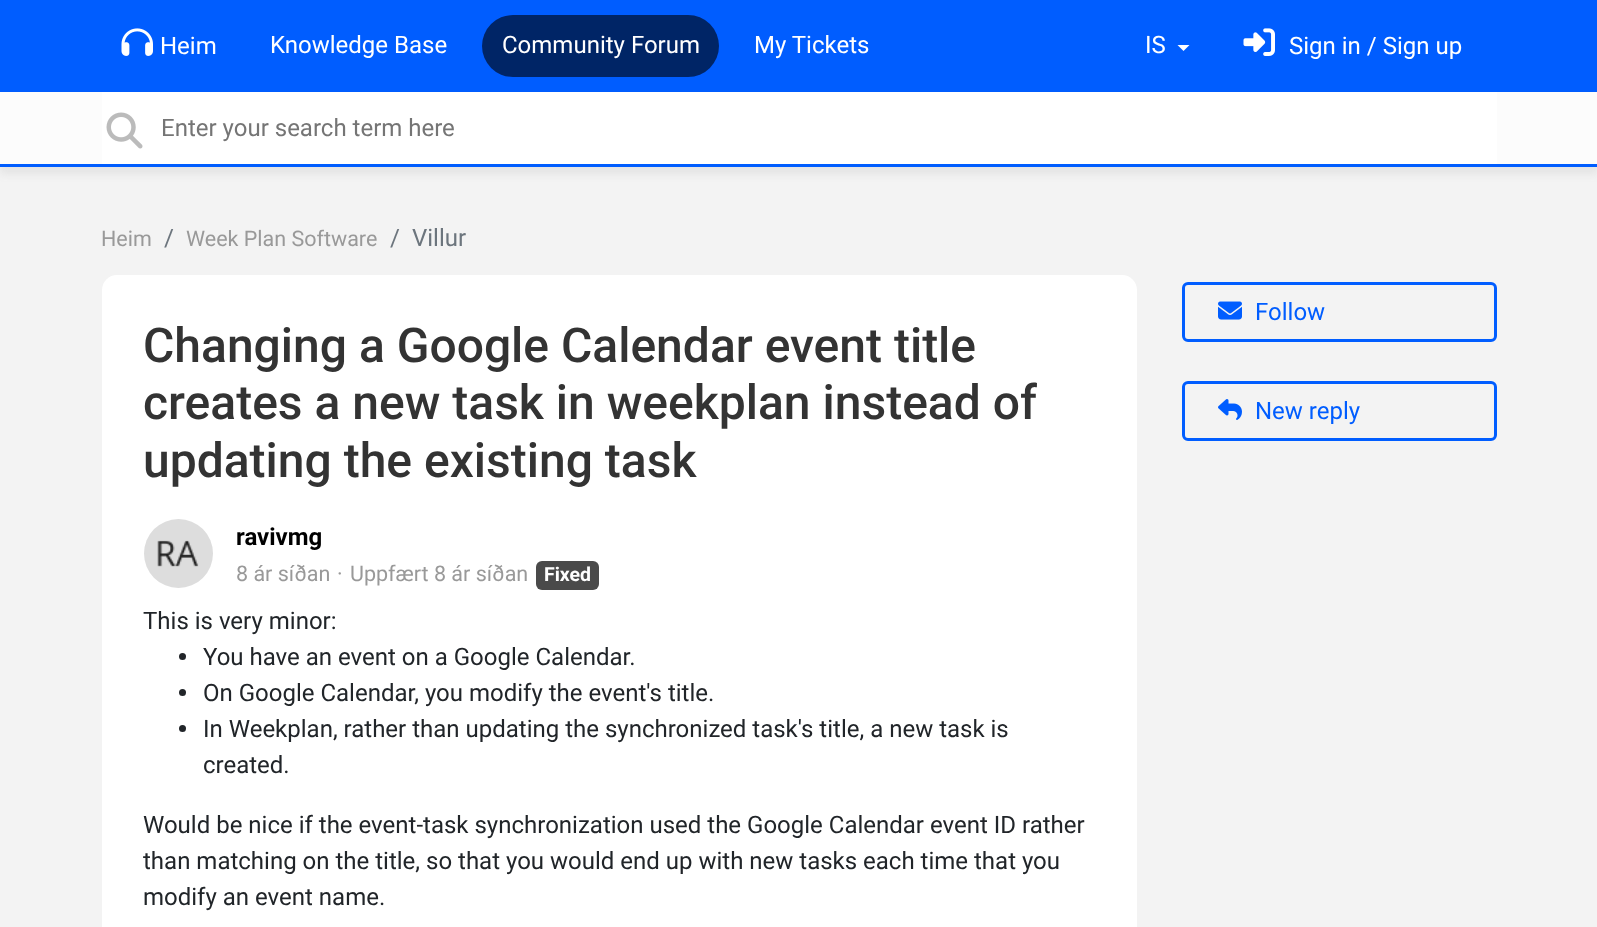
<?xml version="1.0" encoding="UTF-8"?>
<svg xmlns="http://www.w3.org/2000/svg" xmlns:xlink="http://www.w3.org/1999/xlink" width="1597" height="927">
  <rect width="100%" height="100%" fill="#f3f3f3" />
  <rect width="1597" height="92" fill="#005dff" />
  <image x="121" y="28" width="32" height="28" xlink:href="image1.png" />
  <rect x="482" y="15" width="237" height="62" rx="31" fill="#002566" />
  <path d="M 1177.5 45 h 12 l -6 6 z" fill="#ffffff" />
  <image x="1243" y="28" width="32" height="28" xlink:href="image2.png" />
  <rect y="99" width="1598" height="75" fill="#646464" fill-opacity="0.1" filter="blur(4px)" />
  <rect y="92" width="1597" height="72" fill="#fcfcfc" />
  <rect y="164" width="1597" height="3" fill="#005dff" />
  <rect x="102" y="92" width="1395" height="72" fill="#ffffff" />
  <image x="106" y="112" width="37" height="37" xlink:href="image3.png" />
  <rect x="102" y="275" width="1035" height="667" rx="15" fill="#ffffff" />
  <image x="144" y="519" width="69" height="69" xlink:href="image4.png" />
  <rect x="536" y="561" width="63" height="29" rx="6" fill="#4a4a4a" />
  <circle cx="182.5" cy="656.5" r="3.5" fill="#212529" />
  <circle cx="182.5" cy="692.5" r="3.5" fill="#212529" />
  <circle cx="182.5" cy="728.5" r="3.5" fill="#212529" />
  <rect x="1183.5" y="283.5" width="312" height="57" rx="4.5" fill="none" stroke="#005dff" stroke-width="3" />
  <image x="1218" y="301" width="24" height="19" xlink:href="image5.png" />
  <rect x="1183.5" y="382.5" width="312" height="57" rx="4.5" fill="none" stroke="#005dff" stroke-width="3" />
  <image x="1218" y="399" width="24" height="21" xlink:href="image6.png" />
  <text x="160" y="54" style="font-family: Roboto; font-size: 24px; fill: #ffffff">Heim</text>
  <text x="270" y="53" style="font-family: Roboto; font-size: 24px; fill: #ffffff">Knowledge Base</text>
  <text x="502" y="53" style="font-family: Roboto; font-size: 24px; fill: #ffffff">Community Forum</text>
  <text x="754" y="53" style="font-family: Roboto; font-size: 24px; fill: #ffffff">My Tickets</text>
  <text x="1145" y="53" style="font-family: Roboto; font-size: 24px; fill: #ffffff">IS</text>
  <text x="1289" y="54" style="font-family: Roboto; font-size: 24px; fill: #ffffff">Sign in / Sign up</text>
  <text x="161" y="136" style="font-family: Roboto; font-size: 24px; fill: #757575">Enter your search term here</text>
  <text x="101" y="246" style="font-family: Roboto; font-size: 21.5px; fill: #999999">Heim</text>
  <text x="164" y="246" style="font-family: Roboto; font-size: 24px; fill: #6c757d">/</text>
  <text x="186" y="246" style="font-family: Roboto; font-size: 21.5px; fill: #999999">Week Plan Software</text>
  <text x="390" y="246" style="font-family: Roboto; font-size: 24px; fill: #6c757d">/</text>
  <text x="412" y="246" style="font-family: Roboto; font-size: 24px; fill: #6c757d">Villur</text>
  <text x="143" y="362" style="font-family: Roboto; font-size: 48px; font-weight: 500; fill: #333333">Changing a Google Calendar event title</text>
  <text x="143" y="419" style="font-family: Roboto; font-size: 48px; font-weight: 500; fill: #333333">creates a new task in weekplan instead of</text>
  <text x="143" y="477" style="font-family: Roboto; font-size: 48px; font-weight: 500; fill: #333333">updating the existing task</text>
  <text x="236" y="545" style="font-family: Roboto; font-size: 24px; font-weight: bold; fill: #000000">ravivmg</text>
  <text x="236" y="581" style="font-family: Roboto; font-size: 21.5px; fill: #999999">8 ár síðan</text>
  <text x="337" y="581" style="font-family: Roboto; font-size: 21.5px; fill: #999999">·</text>
  <text x="350" y="581" style="font-family: Roboto; font-size: 21.5px; fill: #999999">Uppfært 8 ár síðan</text>
  <text x="544" y="581" style="font-family: Roboto; font-size: 19.5px; font-weight: bold; fill: #ffffff">Fixed</text>
  <text x="143" y="629" style="font-family: Roboto; font-size: 24px; fill: #212529">This is very minor:</text>
  <text x="203" y="665" style="font-family: Roboto; font-size: 24px; fill: #212529">You have an event on a Google Calendar.</text>
  <text x="203" y="701" style="font-family: Roboto; font-size: 24px; fill: #212529">On Google Calendar, you modify the event's title.</text>
  <text x="203" y="737" style="font-family: Roboto; font-size: 24px; fill: #212529">In Weekplan, rather than updating the synchronized task's title, a new task is</text>
  <text x="203" y="773" style="font-family: Roboto; font-size: 24px; fill: #212529">created.</text>
  <text x="143" y="833" style="font-family: Roboto; font-size: 24px; fill: #212529">Would be nice if the event-task synchronization used the Google Calendar event ID rather</text>
  <text x="143" y="869" style="font-family: Roboto; font-size: 24px; fill: #212529">than matching on the title, so that you would end up with new tasks each time that you</text>
  <text x="143" y="905" style="font-family: Roboto; font-size: 24px; fill: #212529">modify an event name.</text>
  <text x="1255" y="320" style="font-family: Roboto; font-size: 24px; fill: #005dff">Follow</text>
  <text x="1255" y="419" style="font-family: Roboto; font-size: 24px; fill: #005dff">New reply</text>
</svg>
